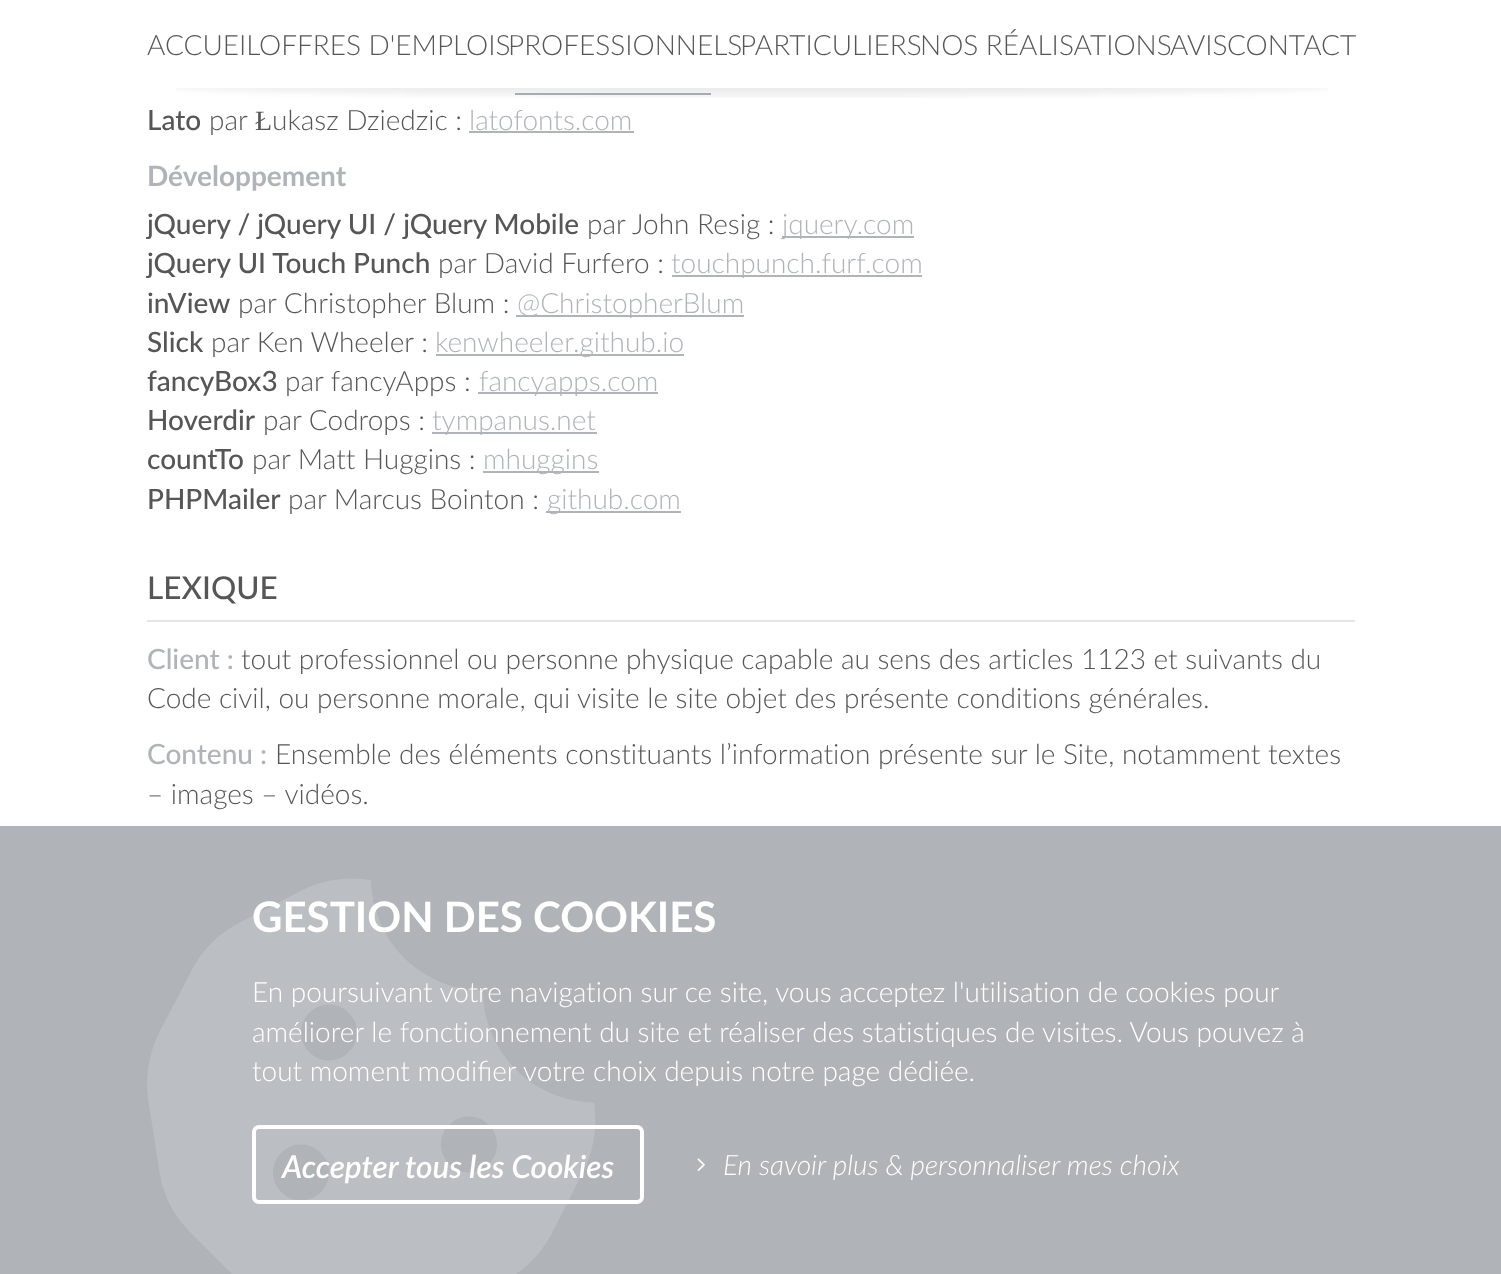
<?xml version="1.0" encoding="UTF-8"?>
<svg xmlns="http://www.w3.org/2000/svg" xmlns:xlink="http://www.w3.org/1999/xlink" width="1501" height="1274">
  <rect width="100%" height="100%" fill="#ffffff" />
  <rect x="515" y="93" width="196" height="2" fill="#b0b3b8" />
  <image x="176" y="88" width="1152" height="10" xlink:href="image1.png" />
  <rect x="469" y="131" width="165" height="2" fill="#b0b3b8" />
  <rect x="782" y="236" width="132" height="2" fill="#b0b3b8" />
  <rect x="672" y="275" width="250" height="2" fill="#b0b3b8" />
  <rect x="516" y="315" width="228" height="2" fill="#b0b3b8" />
  <rect x="436" y="354" width="248" height="2" fill="#b0b3b8" />
  <rect x="478" y="392" width="180" height="2" fill="#b0b3b8" />
  <rect x="432" y="432" width="165" height="2" fill="#b0b3b8" />
  <rect x="483" y="471" width="116" height="2" fill="#b0b3b8" />
  <rect x="546" y="511" width="135" height="2" fill="#b0b3b8" />
  <rect x="147" y="620" width="1208" height="2" fill="#e5e5e5" />
  <rect y="826" width="1501" height="448" fill="#b0b3b8" />
  <image x="147" y="878" width="449" height="396" xlink:href="image2.png" />
  <rect x="254" y="1127" width="388" height="75" rx="5" fill="none" stroke="#ffffff" stroke-width="4" />
  <image x="697" y="1158" width="8" height="13" xlink:href="image3.png" />
  <text x="147" y="55" style="font-family: Lato; font-size: 28px; font-weight: 300; fill: #565656">ACCUEIL</text>
  <text x="259" y="55" style="font-family: Lato; font-size: 28px; font-weight: 300; fill: #565656">OFFRES D'EMPLOIS</text>
  <text x="508" y="55" style="font-family: Lato; font-size: 28px; font-weight: 300; fill: #565656">PROFESSIONNELS</text>
  <text x="740" y="55" style="font-family: Lato; font-size: 28px; font-weight: 300; fill: #565656">PARTICULIERS</text>
  <text x="920" y="55" style="font-family: Lato; font-size: 28px; font-weight: 300; fill: #565656">NOS RÉALISATIONS</text>
  <text x="1170" y="55" style="font-family: Lato; font-size: 28px; font-weight: 300; fill: #565656">AVIS</text>
  <text x="1227" y="55" style="font-family: Lato; font-size: 28px; font-weight: 300; fill: #565656">CONTACT</text>
  <text x="147" y="130" style="font-family: Lato; font-size: 28px; font-weight: 500; fill: #565656">Lato</text>
  <text x="209" y="130" style="font-family: Lato; font-size: 28px; font-weight: 300; fill: #565656">par</text>
  <text x="255" y="130" style="font-family: Liberation Serif; font-size: 28px; fill: #565656">Ł</text>
  <text x="272" y="130" style="font-family: Lato; font-size: 28px; font-weight: 300; fill: #565656">ukasz Dziedzic :</text>
  <text x="469" y="130" style="font-family: Lato; font-size: 28px; font-weight: 300; fill: #b0b3b8">latofonts.com</text>
  <text x="147" y="186" style="font-family: lato; font-size: 28px; font-weight: bold; fill: #b0b3b8">Développement</text>
  <text x="147" y="234" style="font-family: Lato; font-size: 28px; font-weight: 500; fill: #565656">jQuery / jQuery UI / jQuery Mobile</text>
  <text x="587" y="234" style="font-family: Lato; font-size: 28px; font-weight: 300; fill: #565656">par John Resig :</text>
  <text x="782" y="234" style="font-family: Lato; font-size: 28px; font-weight: 300; fill: #b0b3b8">jquery.com</text>
  <text x="147" y="273" style="font-family: Lato; font-size: 28px; font-weight: 500; fill: #565656">jQuery UI Touch Punch</text>
  <text x="438" y="273" style="font-family: Lato; font-size: 28px; font-weight: 300; fill: #565656">par David Furfero :</text>
  <text x="671" y="273" style="font-family: Lato; font-size: 28px; font-weight: 300; fill: #b0b3b8">touchpunch.furf.com</text>
  <text x="147" y="313" style="font-family: Lato; font-size: 28px; font-weight: 500; fill: #565656">inView</text>
  <text x="238" y="313" style="font-family: Lato; font-size: 28px; font-weight: 300; fill: #565656">par Christopher Blum :</text>
  <text x="517" y="313" style="font-family: Lato; font-size: 28px; font-weight: 300; fill: #b0b3b8">@ChristopherBlum</text>
  <text x="147" y="352" style="font-family: Lato; font-size: 28px; font-weight: 500; fill: #565656">Slick</text>
  <text x="211" y="352" style="font-family: Lato; font-size: 28px; font-weight: 300; fill: #565656">par Ken Wheeler :</text>
  <text x="435" y="352" style="font-family: Lato; font-size: 28px; font-weight: 300; fill: #b0b3b8">kenwheeler.github.io</text>
  <text x="147" y="391" style="font-family: Lato; font-size: 28px; font-weight: 500; fill: #565656">fancyBox3</text>
  <text x="285" y="391" style="font-family: Lato; font-size: 28px; font-weight: 300; fill: #565656">par fancyApps :</text>
  <text x="479" y="391" style="font-family: Lato; font-size: 28px; font-weight: 300; fill: #b0b3b8">fancyapps.com</text>
  <text x="147" y="430" style="font-family: Lato; font-size: 28px; font-weight: 500; fill: #565656">Hoverdir</text>
  <text x="263" y="430" style="font-family: Lato; font-size: 28px; font-weight: 300; fill: #565656">par Codrops :</text>
  <text x="432" y="430" style="font-family: Lato; font-size: 28px; font-weight: 300; fill: #b0b3b8">tympanus.net</text>
  <text x="147" y="469" style="font-family: Lato; font-size: 28px; font-weight: 500; fill: #565656">countTo</text>
  <text x="252" y="469" style="font-family: Lato; font-size: 28px; font-weight: 300; fill: #565656">par Matt Huggins :</text>
  <text x="483" y="469" style="font-family: Lato; font-size: 28px; font-weight: 300; fill: #b0b3b8">mhuggins</text>
  <text x="147" y="509" style="font-family: Lato; font-size: 28px; font-weight: 500; fill: #565656">PHPMailer</text>
  <text x="288" y="509" style="font-family: Lato; font-size: 28px; font-weight: 300; fill: #565656">par Marcus Bointon :</text>
  <text x="547" y="509" style="font-family: Lato; font-size: 28px; font-weight: 300; fill: #b0b3b8">github.com</text>
  <text x="147" y="599" style="font-family: Lato; font-size: 31.5px; font-weight: 500; fill: #565656">LEXIQUE</text>
  <text x="147" y="669" style="font-family: Lato; font-size: 28px; font-weight: 500; fill: #b0b3b8">Client :</text>
  <text x="241" y="669" style="font-family: Lato; font-size: 28px; font-weight: 300; fill: #565656">tout professionnel ou personne physique capable au sens des articles 1123 et suivants du</text>
  <text x="147" y="708" style="font-family: Lato; font-size: 28px; font-weight: 300; fill: #565656">Code civil, ou personne morale, qui visite le site objet des présente conditions générales.</text>
  <text x="147" y="764" style="font-family: Lato; font-size: 28px; font-weight: 500; fill: #b0b3b8">Contenu :</text>
  <text x="275" y="764" style="font-family: Lato; font-size: 28px; font-weight: 300; fill: #565656">Ensemble des éléments constituants l’information présente sur le Site, notamment textes</text>
  <text x="147" y="804" style="font-family: Lato; font-size: 28px; font-weight: 300; fill: #565656">– images – vidéos.</text>
  <text x="252" y="932" style="font-family: lato; font-size: 42px; font-weight: bold; fill: #ffffff">GESTION DES COOKIES</text>
  <text x="252" y="1002" style="font-family: Lato; font-size: 28px; font-weight: 300; fill: #ffffff">En poursuivant votre navigation sur ce site, vous acceptez l'utilisation de cookies pour</text>
  <text x="252" y="1042" style="font-family: Lato; font-size: 28px; font-weight: 300; fill: #ffffff">améliorer le fonctionnement du site et réaliser des statistiques de visites. Vous pouvez à</text>
  <text x="252" y="1081" style="font-family: Lato; font-size: 28px; font-weight: 300; fill: #ffffff">tout moment modifier votre choix depuis notre page dédiée.</text>
  <text x="282" y="1178" style="font-family: Lato; font-size: 31.5px; font-weight: 600; font-style: italic; fill: #ffffff">Accepter tous les Cookies</text>
  <text x="723" y="1175" style="font-family: Lato; font-size: 28px; font-weight: 300; font-style: italic; fill: #ffffff">En savoir plus &amp; personnaliser mes choix</text>
</svg>
